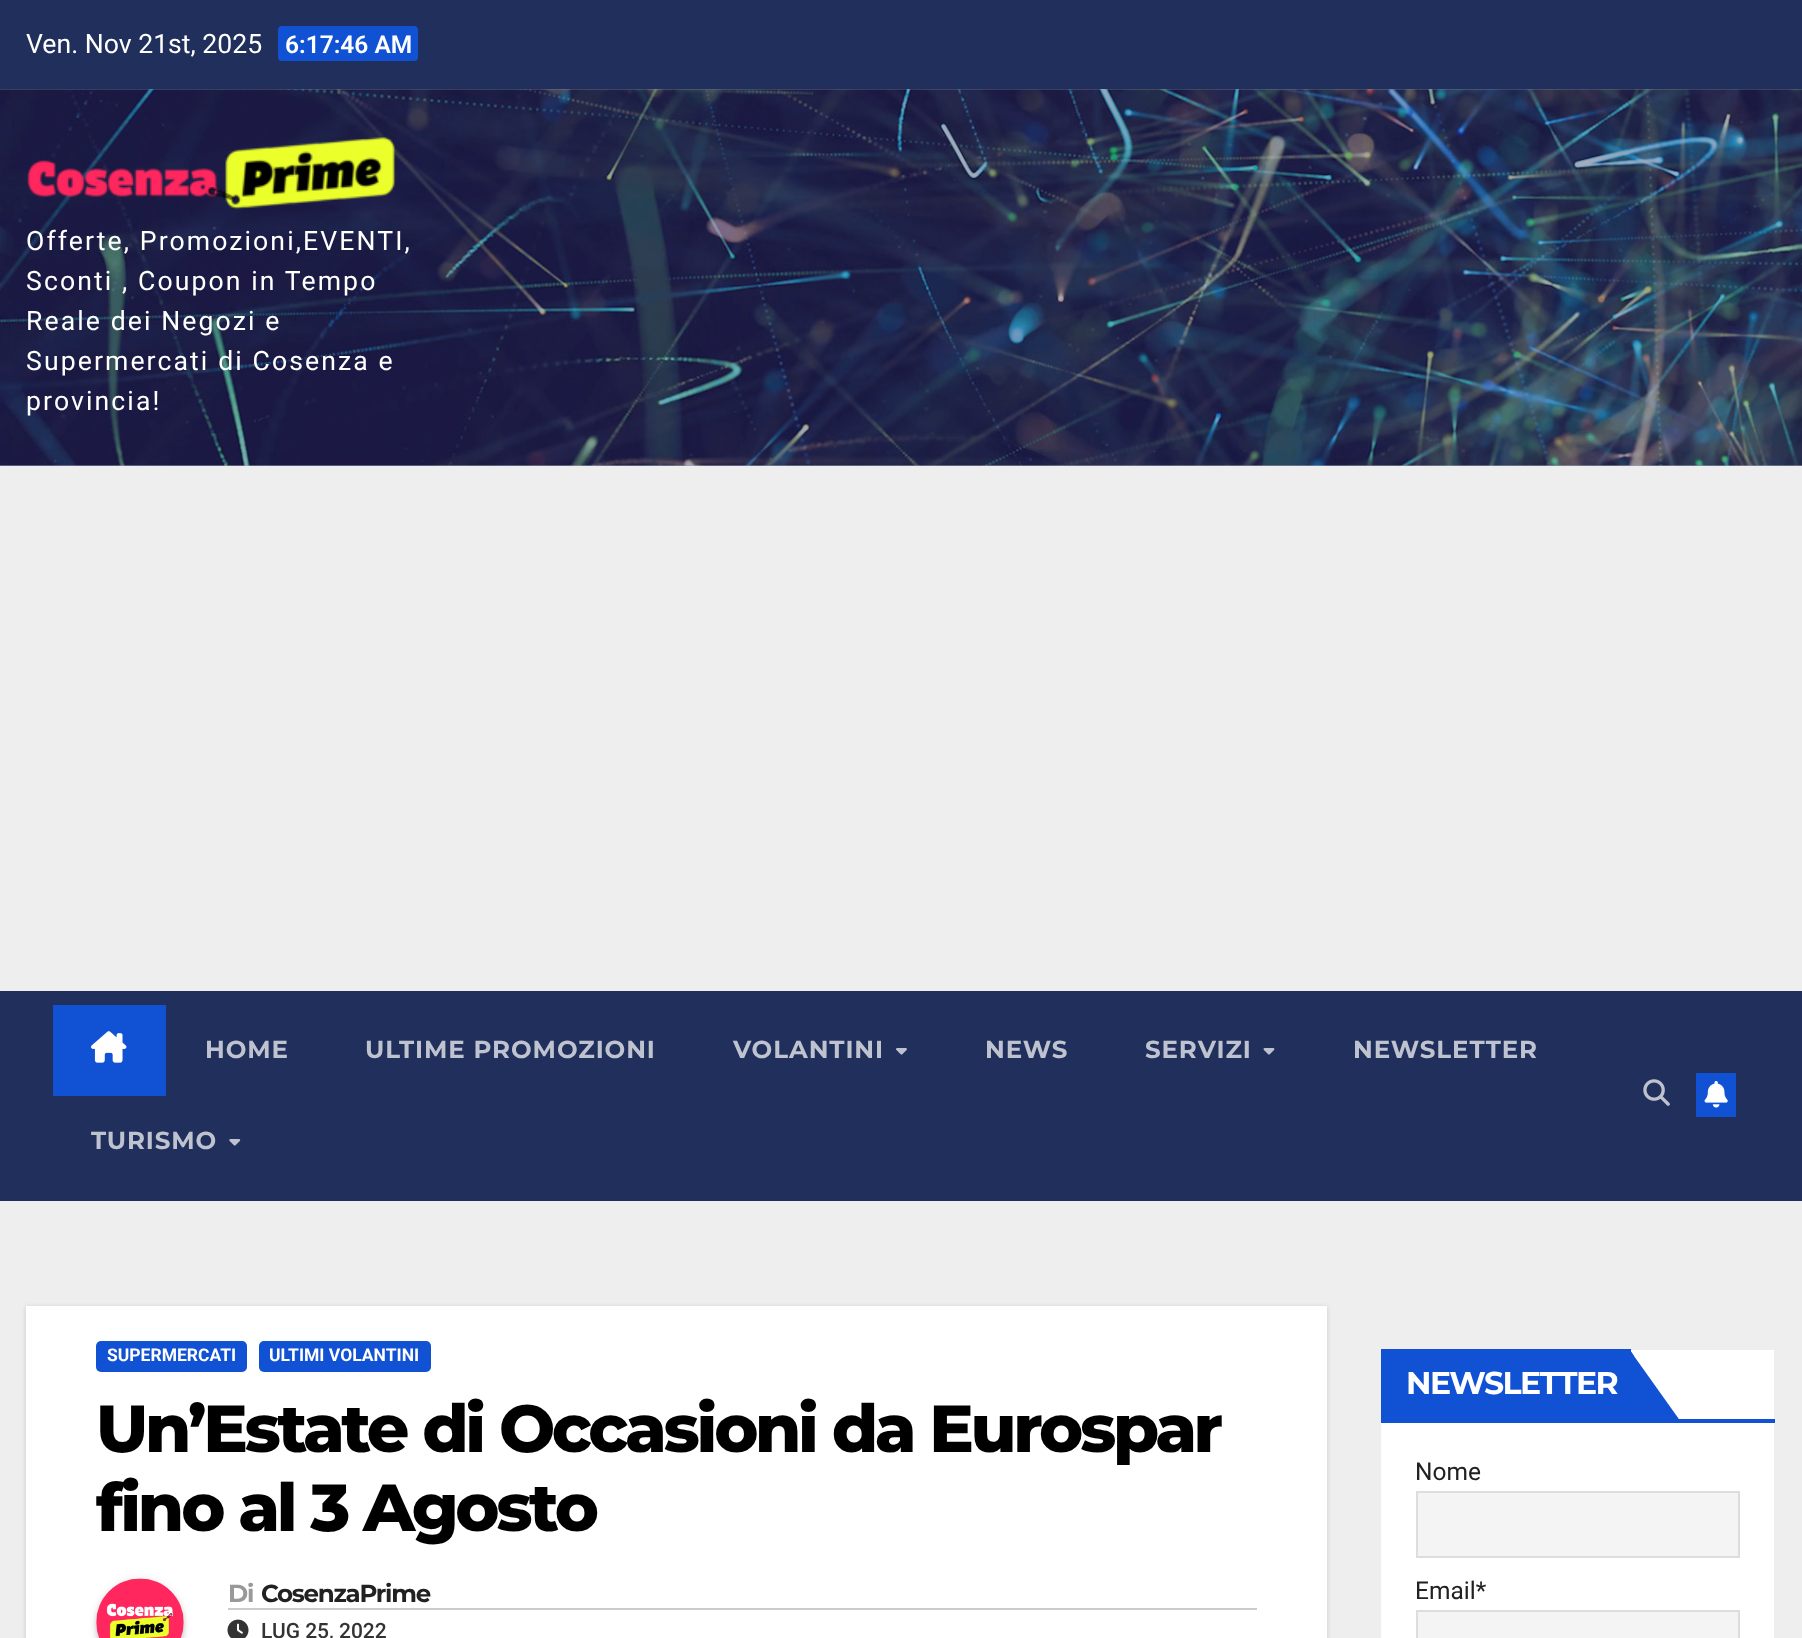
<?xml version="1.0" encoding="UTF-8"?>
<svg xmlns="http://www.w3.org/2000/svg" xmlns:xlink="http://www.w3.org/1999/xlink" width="1802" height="1638">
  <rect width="100%" height="100%" fill="#eeeeee" />
  <rect y="89" width="1802" height="377" fill="#9ca2b3" />
  <rect width="1802" height="89" fill="#202f5b" />
  <rect x="278" y="26" width="140" height="35" rx="4" fill="#1151d3" />
  <image x="0" y="89" width="1802" height="377" xlink:href="image1.png" />
  <image x="27" y="137" width="369" height="73" xlink:href="image2.png" />
  <rect y="991" width="1802" height="210" fill="#202f5b" />
  <rect x="53" y="1005" width="113" height="91" fill="#1151d3" />
  <image x="91" y="1031" width="36" height="32" xlink:href="image3.png" />
  <image x="896" y="1048" width="11" height="7" xlink:href="image4.png" />
  <image x="1263" y="1048" width="12" height="7" xlink:href="image5.png" />
  <image x="229" y="1139" width="12" height="7" xlink:href="image6.png" />
  <image x="1643" y="1079" width="27" height="27" xlink:href="image7.png" />
  <rect x="1696" y="1073" width="40" height="44" fill="#1151d3" />
  <image x="1704" y="1081" width="24" height="27" xlink:href="image8.png" />
  <rect x="26" y="1307" width="1301" height="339" fill="#000000" fill-opacity="0.15" filter="blur(2.5px)" />
  <rect x="26" y="1306" width="1301" height="332" fill="#ffffff" />
  <rect x="96" y="1341" width="151" height="31" rx="5" fill="#1151d3" />
  <rect x="259" y="1341" width="172" height="31" rx="5" fill="#1151d3" />
  <rect x="96" y="1580" width="88" height="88" rx="44" fill="#000000" fill-opacity="0.12" filter="blur(4.5px)" />
  <rect x="96" y="1582" width="88" height="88" rx="44" fill="#000000" fill-opacity="0.14" filter="blur(2px)" />
  <image x="96" y="1578" width="88" height="60" xlink:href="image9.png" />
  <rect x="228" y="1608" width="1029" height="2" fill="#cccccc" />
  <image x="227" y="1619" width="22" height="19" xlink:href="image10.png" />
  <rect x="1381" y="1350" width="393" height="288" fill="#ffffff" />
  <rect x="1381" y="1419" width="394" height="4" fill="#1151d3" />
  <rect x="1381" y="1349" width="250" height="70" fill="#1151d3" />
  <path d="M 1629 1349 v 73 h 52 z" fill="#1151d3" />
  <path d="M 1630 1350 l -1 -1 v 73 h 1 l 4 -4 v -62 z" fill="#1151d3" />
  <rect x="1417" y="1492" width="322" height="65" fill="#f4f4f4" stroke="#dddddd" stroke-width="2" />
  <rect x="1417" y="1611" width="322" height="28" fill="#f4f4f4" stroke="#dddddd" stroke-width="2" />
  <text x="26" y="53" style="font-family: Roboto; font-size: 26.6px; fill: #ffffff">Ven. Nov 21st, 2025</text>
  <text x="285" y="53" style="font-family: Roboto; font-size: 24.5px; font-weight: 600; fill: #ffffff">6:17:46 AM</text>
  <text x="26" y="250" style="font-family: Roboto; font-size: 26.6px; letter-spacing: 2.1px; fill: #ffffff">Offerte, Promozioni,EVENTI,</text>
  <text x="26" y="290" style="font-family: Roboto; font-size: 26.6px; letter-spacing: 2.1px; fill: #ffffff">Sconti , Coupon in Tempo</text>
  <text x="26" y="330" style="font-family: Roboto; font-size: 26.6px; letter-spacing: 2.1px; fill: #ffffff">Reale dei Negozi e</text>
  <text x="26" y="370" style="font-family: Roboto; font-size: 26.6px; letter-spacing: 2.1px; fill: #ffffff">Supermercati di Cosenza e</text>
  <text x="26" y="410" style="font-family: Roboto; font-size: 26.6px; letter-spacing: 2.1px; fill: #ffffff">provincia!</text>
  <text x="205" y="1058" style="font-family: Montserrat; font-size: 24.5px; font-weight: bold; letter-spacing: 0.9px; fill: #bec3cf">HOME</text>
  <text x="365" y="1058" style="font-family: Montserrat; font-size: 24.5px; font-weight: bold; letter-spacing: 0.9px; fill: #bec3cf">ULTIME PROMOZIONI</text>
  <text x="733" y="1058" style="font-family: Montserrat; font-size: 24.5px; font-weight: bold; letter-spacing: 0.9px; fill: #bec3cf">VOLANTINI</text>
  <text x="985" y="1058" style="font-family: Montserrat; font-size: 24.5px; font-weight: bold; letter-spacing: 0.9px; fill: #bec3cf">NEWS</text>
  <text x="1145" y="1058" style="font-family: Montserrat; font-size: 24.5px; font-weight: bold; letter-spacing: 0.9px; fill: #bec3cf">SERVIZI</text>
  <text x="1353" y="1058" style="font-family: Montserrat; font-size: 24.5px; font-weight: bold; letter-spacing: 0.9px; fill: #bec3cf">NEWSLETTER</text>
  <text x="91" y="1149" style="font-family: Montserrat; font-size: 24.5px; font-weight: bold; letter-spacing: 0.9px; fill: #bec3cf">TURISMO</text>
  <text x="107" y="1361" style="font-family: Roboto; font-size: 17.5px; font-weight: bold; fill: #ffffff">SUPERMERCATI</text>
  <text x="269" y="1361" style="font-family: Roboto; font-size: 17.5px; font-weight: bold; fill: #ffffff">ULTIMI VOLANTINI</text>
  <text x="96" y="1452" style="font-family: Montserrat; font-size: 66.5px; font-weight: 800; letter-spacing: -3.3px; fill: #000000">Un’Estate di Occasioni da Eurospar</text>
  <text x="96" y="1531" style="font-family: Montserrat; font-size: 66.5px; font-weight: 800; letter-spacing: -3.3px; fill: #000000">fino al 3 Agosto</text>
  <text x="228" y="1602" style="font-family: Montserrat; font-size: 24.5px; font-weight: bold; letter-spacing: -1.25px; fill: #999999">Di</text>
  <text x="261" y="1602" style="font-family: Montserrat; font-size: 24.5px; font-weight: bold; letter-spacing: -1.25px; fill: #212121">CosenzaPrime</text>
  <text x="261" y="1638" style="font-family: Roboto; font-size: 21px; font-weight: 500; fill: #333333">LUG 25, 2022</text>
  <text x="1406" y="1394" style="font-family: Montserrat; font-size: 31.5px; font-weight: bold; letter-spacing: -1.5px; fill: #ffffff">NEWSLETTER</text>
  <text x="1415" y="1480" style="font-family: Roboto; font-size: 24.5px; fill: #212121">Nome</text>
  <text x="1415" y="1599" style="font-family: Roboto; font-size: 24.5px; fill: #212121">Email*</text>
</svg>
